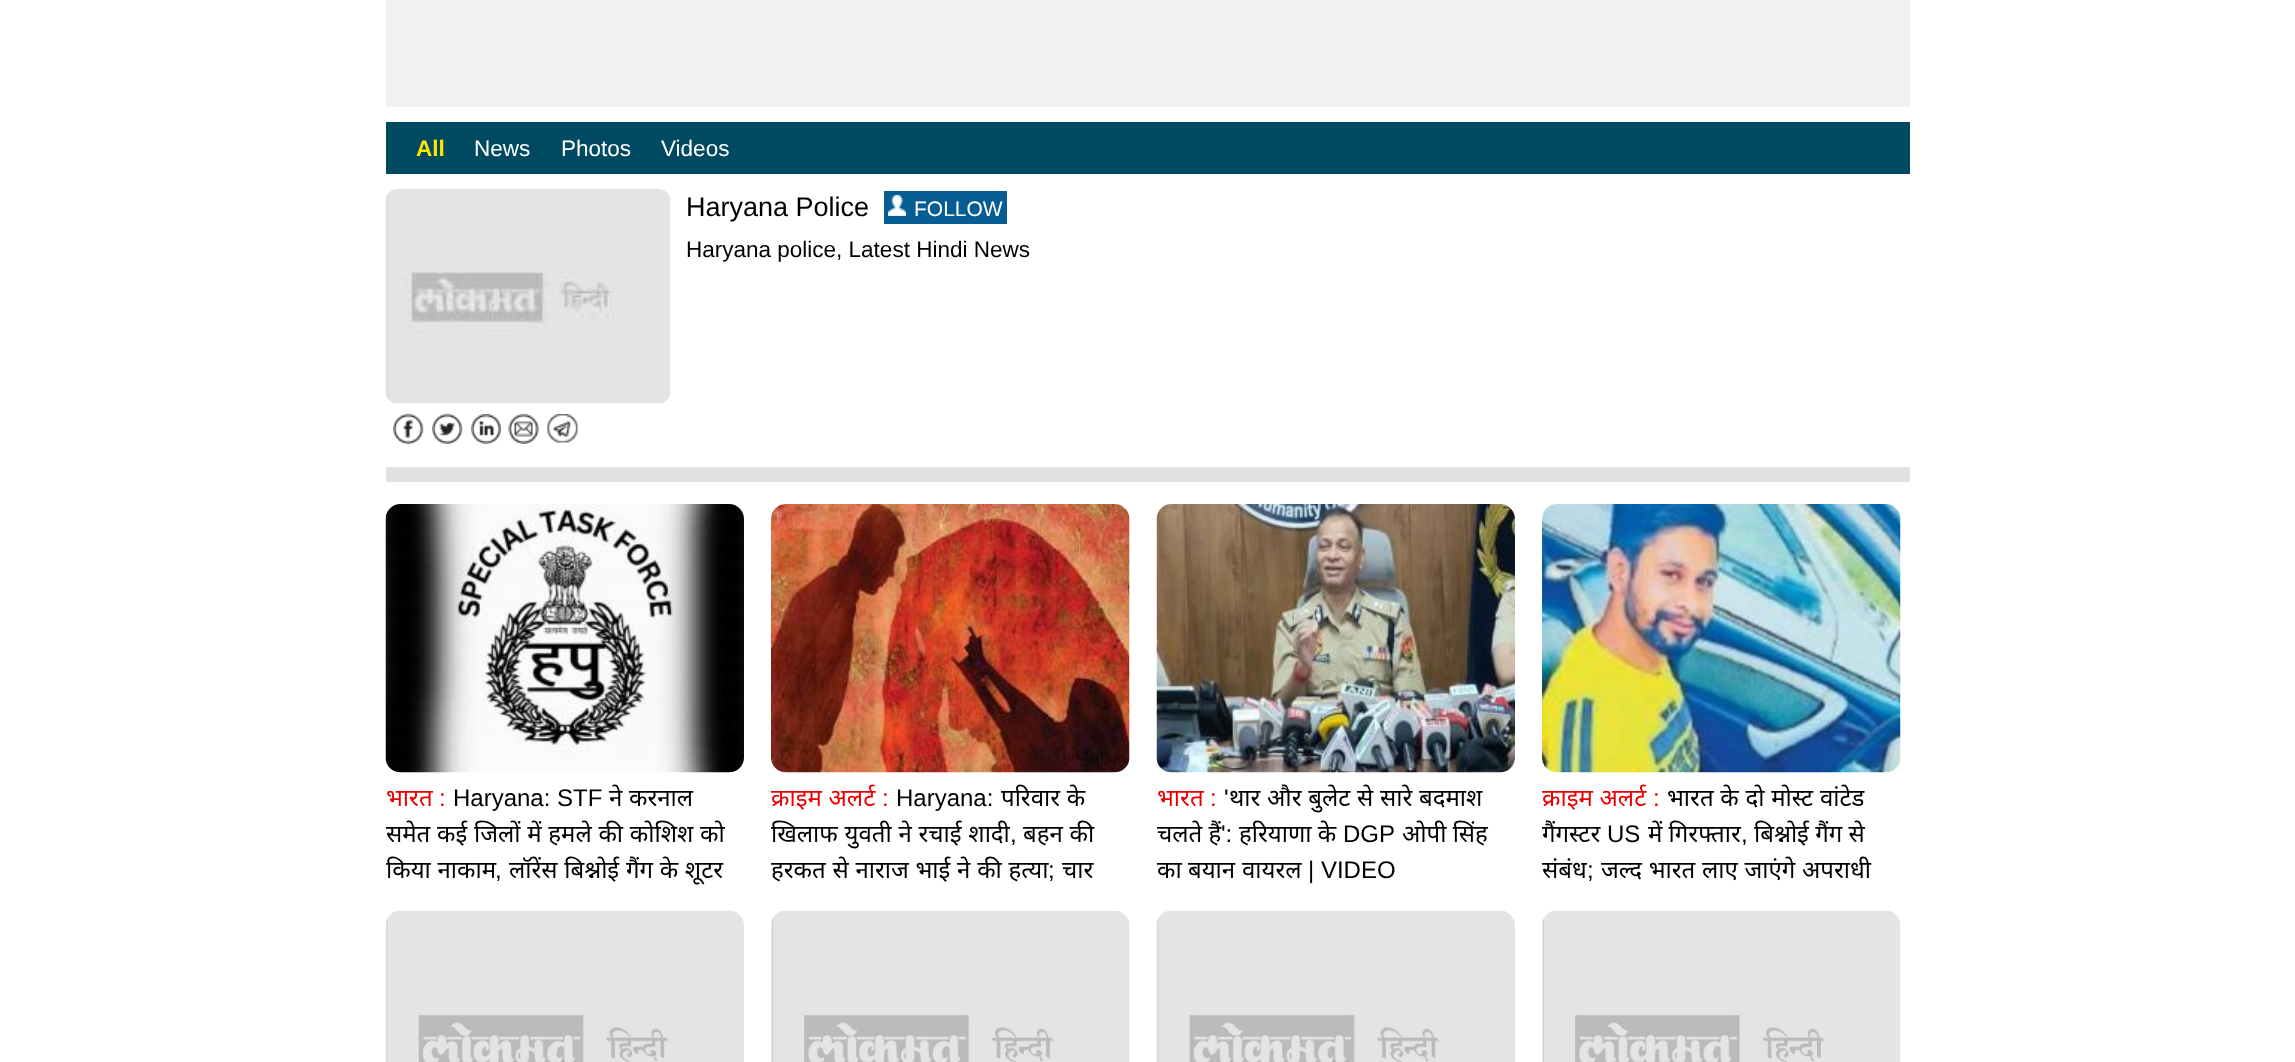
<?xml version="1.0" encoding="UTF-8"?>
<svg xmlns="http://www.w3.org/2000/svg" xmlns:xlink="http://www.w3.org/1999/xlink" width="2295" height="1062">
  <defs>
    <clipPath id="clip1"><rect x="1542" y="780" width="359" height="108" /></clipPath>
  </defs>
  <rect width="100%" height="100%" fill="#ffffff" />
  <rect x="386" width="1524" height="107" fill="#f1f1f1" />
  <rect x="386" y="122" width="1524" height="52" fill="#004a61" />
  <rect x="386" y="467" width="1524" height="15" fill="#e1e1e1" />
  <image x="385" y="189" width="286" height="215" xlink:href="image1.png" />
  <rect x="884" y="191" width="123" height="33" fill="#065d93" />
  <image x="888" y="195" width="18" height="21" xlink:href="image2.png" />
  <image x="393" y="413" width="31" height="31" xlink:href="image3.png" />
  <image x="432" y="413" width="31" height="31" xlink:href="image4.png" />
  <image x="471" y="414" width="30" height="30" xlink:href="image5.png" />
  <image x="508" y="413" width="31" height="31" xlink:href="image6.png" />
  <image x="547" y="414" width="31" height="29" xlink:href="image7.png" />
  <image x="385" y="504" width="359" height="269" xlink:href="image8.png" />
  <image x="771" y="504" width="359" height="269" xlink:href="image9.png" />
  <image x="1156" y="504" width="359" height="269" xlink:href="image10.png" />
  <image x="1542" y="504" width="359" height="269" xlink:href="image11.png" />
  <image x="385" y="910" width="359" height="152" xlink:href="image12.png" />
  <image x="771" y="910" width="359" height="152" xlink:href="image13.png" />
  <image x="1156" y="910" width="359" height="152" xlink:href="image12.png" />
  <image x="1542" y="910" width="359" height="152" xlink:href="image13.png" />
  <text x="416" y="156" style="font-family: Liberation Sans; font-size: 22.5px; font-weight: bold; fill: #ffe400">All</text>
  <text x="474" y="156" style="font-family: Liberation Sans; font-size: 22.5px; fill: #ffffff">News</text>
  <text x="561" y="156" style="font-family: Liberation Sans; font-size: 22.5px; fill: #ffffff">Photos</text>
  <text x="661" y="156" style="font-family: Liberation Sans; font-size: 22.5px; fill: #ffffff">Videos</text>
  <text x="686" y="216" style="font-family: Liberation Sans; font-size: 27px; fill: #000000">Haryana Police</text>
  <text x="914" y="216" style="font-family: Liberation Sans; font-size: 21px; fill: #ffffff">FOLLOW</text>
  <text x="686" y="257" style="font-family: Liberation Sans; font-size: 22.5px; fill: #000000">Haryana police, Latest Hindi News</text>
  <text x="453" y="806" style="font-family: Liberation Sans; font-size: 24px; fill: #000000">Haryana: STF</text>
  <text x="609" y="806" style="font-family: Noto Sans; font-size: 24px; fill: #000000">ने</text>
  <text x="629" y="806" style="font-family: Noto Sans; font-size: 24px; fill: #000000">करनाल</text>
  <text x="386" y="842" word-spacing="0.5" style="font-family: Noto Sans; font-size: 24px; fill: #000000">समेत कई जिलों में हमले की कोशिश को</text>
  <text x="386" y="878" word-spacing="0.5" style="font-family: Noto Sans; font-size: 24px; fill: #000000">किया नाकाम</text>
  <text x="495" y="878" style="font-family: Liberation Sans; font-size: 24px; fill: #000000">,</text>
  <text x="509" y="878" word-spacing="0.5" style="font-family: Noto Sans; font-size: 24px; fill: #000000">लॉरेंस बिश्नोई गैंग के शूटर</text>
  <text x="386" y="806" style="font-family: Noto Sans; font-size: 24px; fill: #e90000">भारत</text>
  <text x="439" y="806" style="font-family: Liberation Sans; font-size: 24px; fill: #e90000">:</text>
  <text x="771" y="806" word-spacing="0.5" style="font-family: Noto Sans; font-size: 24px; fill: #e90000">क्राइम अलर्ट</text>
  <text x="882" y="806" style="font-family: Liberation Sans; font-size: 24px; fill: #e90000">:</text>
  <text x="896" y="806" style="font-family: Liberation Sans; font-size: 24px; fill: #000000">Haryana:</text>
  <text x="1001" y="806" word-spacing="0.5" style="font-family: Noto Sans; font-size: 24px; fill: #000000">परिवार के</text>
  <text x="771" y="842" word-spacing="0.5" style="font-family: Noto Sans; font-size: 24px; fill: #000000">खिलाफ युवती ने रचाई शादी</text>
  <text x="1010" y="842" style="font-family: Liberation Sans; font-size: 24px; fill: #000000">,</text>
  <text x="1023" y="842" word-spacing="0.5" style="font-family: Noto Sans; font-size: 24px; fill: #000000">बहन की</text>
  <text x="771" y="878" word-spacing="0.5" style="font-family: Noto Sans; font-size: 24px; fill: #000000">हरकत से नाराज भाई ने की हत्या</text>
  <text x="1048" y="878" style="font-family: Liberation Sans; font-size: 24px; fill: #000000">;</text>
  <text x="1062" y="878" style="font-family: Noto Sans; font-size: 24px; fill: #000000">चार</text>
  <text x="1224" y="806" style="font-family: Liberation Sans; font-size: 24px; fill: #000000">'</text>
  <text x="1229" y="806" word-spacing="0.5" style="font-family: Noto Sans; font-size: 24px; fill: #000000">थार और बुलेट से सारे बदमाश</text>
  <text x="1157" y="842" style="font-family: Noto Sans; font-size: 24px; fill: #000000">चलते हैं</text>
  <text x="1221" y="842" style="font-family: Liberation Sans; font-size: 24px; fill: #000000">':</text>
  <text x="1239" y="842" style="font-family: Noto Sans; font-size: 24px; fill: #000000">हरियाणा के</text>
  <text x="1343" y="842" style="font-family: Liberation Sans; font-size: 24px; fill: #000000">DGP</text>
  <text x="1402" y="842" style="font-family: Noto Sans; font-size: 24px; fill: #000000">ओपी सिंह</text>
  <text x="1157" y="878" style="font-family: Noto Sans; font-size: 24px; fill: #000000">का</text>
  <text x="1188" y="878" style="font-family: Noto Sans; font-size: 24px; fill: #000000">बयान</text>
  <text x="1242" y="878" style="font-family: Noto Sans; font-size: 24px; fill: #000000">वायरल</text>
  <text x="1308" y="878" style="font-family: Liberation Sans; font-size: 24px; fill: #000000">| VIDEO</text>
  <text x="1157" y="806" style="font-family: Noto Sans; font-size: 24px; fill: #e90000">भारत</text>
  <text x="1210" y="806" style="font-family: Liberation Sans; font-size: 24px; fill: #e90000">:</text>
  <text x="1542" y="806" word-spacing="0.5" style="font-family: Noto Sans; font-size: 24px; fill: #e90000">क्राइम अलर्ट</text>
  <text x="1653" y="806" style="font-family: Liberation Sans; font-size: 24px; fill: #e90000">:</text>
  <text x="1667" y="806" word-spacing="0.5" style="font-family: Noto Sans; font-size: 24px; fill: #000000">भारत के दो मोस्ट वांटेड</text>
  <g clip-path="url(#clip1)">
    <text x="1542" y="842" style="font-family: Noto Sans; font-size: 24px; fill: #000000">गैंगस्टर</text>
  </g>
  <text x="1607" y="842" style="font-family: Liberation Sans; font-size: 24px; fill: #000000">US</text>
  <text x="1648" y="842" style="font-family: Noto Sans; font-size: 24px; fill: #000000">में गिरफ्तार</text>
  <text x="1741" y="842" style="font-family: Liberation Sans; font-size: 24px; fill: #000000">,</text>
  <text x="1754" y="842" style="font-family: Noto Sans; font-size: 24px; fill: #000000">बिश्नोई गैंग से</text>
  <g clip-path="url(#clip1)">
    <text x="1542" y="878" style="font-family: Noto Sans; font-size: 24px; fill: #000000">संबंध</text>
  </g>
  <text x="1587" y="878" style="font-family: Liberation Sans; font-size: 24px; fill: #000000">;</text>
  <text x="1601" y="878" word-spacing="0.5" style="font-family: Noto Sans; font-size: 24px; fill: #000000">जल्द भारत लाए जाएंगे अपराधी</text>
</svg>
